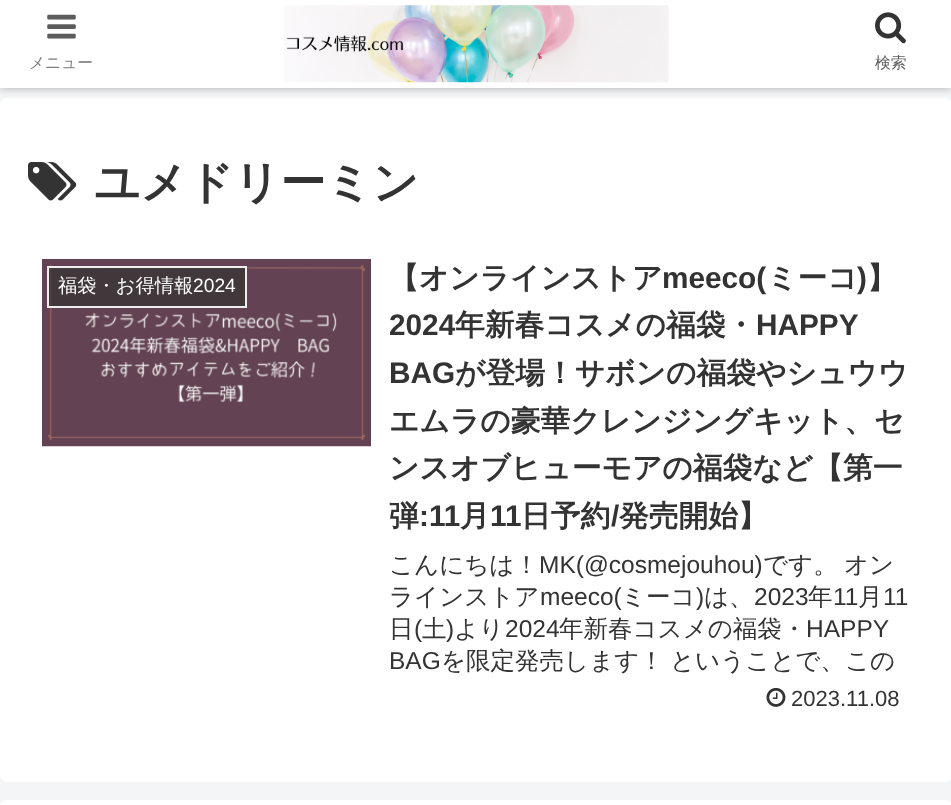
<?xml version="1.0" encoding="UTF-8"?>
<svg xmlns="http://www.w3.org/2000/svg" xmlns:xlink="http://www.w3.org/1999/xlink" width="951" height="805">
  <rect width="100%" height="100%" fill="#f4f5f7" />
  <rect y="98" width="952" height="684" rx="7" fill="#ffffff" />
  <rect width="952" height="88" fill="#a9a9a9" filter="blur(4.5px)" />
  <rect width="951" height="88" fill="#ffffff" />
  <image x="47" y="14" width="29" height="25" xlink:href="image1.png" />
  <image x="284" y="5" width="385" height="78" xlink:href="image2.png" />
  <image x="875" y="12" width="31" height="32" xlink:href="image3.png" />
  <image x="28" y="162" width="49" height="39" xlink:href="image4.png" />
  <image x="42" y="259" width="329" height="188" xlink:href="image5.png" />
  <rect x="48" y="267" width="198" height="40" fill="#333333" fill-opacity="0.7" stroke="#eeeeee" stroke-width="2" />
  <image x="766" y="687" width="20" height="20" xlink:href="image6.png" />
  <rect y="800" width="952" height="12" rx="7" fill="#ffffff" />
  <text x="29" y="68" style="font-family: WenQuanYi Zen Hei; font-size: 15.75px; font-weight: 500; fill: #7c7c7c">メニュー</text>
  <text x="875" y="68" style="font-family: WenQuanYi Zen Hei; font-size: 15.75px; font-weight: 500; fill: #5c5c5c">検索</text>
  <text x="94" y="198" style="font-family: WenQuanYi Zen Hei; font-size: 45.5px; font-weight: bold; fill: #333333">ユメドリーミン</text>
  <text x="58" y="292" style="font-family: WenQuanYi Zen Hei; font-size: 19.25px; font-weight: 500; fill: #ffffff">福袋・お得情報</text>
  <text x="193" y="292" style="font-family: Liberation Sans; font-size: 19.25px; fill: #ffffff">2024</text>
  <text x="389" y="288" style="font-family: WenQuanYi Zen Hei; font-size: 29.75px; font-weight: bold; fill: #333333">【オンラインストア</text>
  <text x="662" y="288" style="font-family: Liberation Sans; font-size: 29.75px; font-weight: bold; fill: #333333">meeco(</text>
  <text x="767" y="288" style="font-family: WenQuanYi Zen Hei; font-size: 29.75px; font-weight: bold; fill: #333333">ミーコ</text>
  <text x="857" y="288" style="font-family: Liberation Sans; font-size: 29.75px; font-weight: bold; fill: #333333">)</text>
  <text x="867" y="288" style="font-family: WenQuanYi Zen Hei; font-size: 29.75px; font-weight: bold; fill: #333333">】</text>
  <text x="389" y="335" style="font-family: Liberation Sans; font-size: 29.75px; font-weight: bold; fill: #333333">2024</text>
  <text x="455" y="335" style="font-family: WenQuanYi Zen Hei; font-size: 29.75px; font-weight: bold; fill: #333333">年新春コスメの福袋・</text>
  <text x="756" y="335" style="font-family: Liberation Sans; font-size: 29.75px; font-weight: bold; fill: #333333">HAPPY</text>
  <text x="389" y="383" style="font-family: Liberation Sans; font-size: 29.75px; font-weight: bold; fill: #333333">BAG</text>
  <text x="455" y="383" style="font-family: WenQuanYi Zen Hei; font-size: 29.75px; font-weight: bold; fill: #333333">が登場！サボンの福袋やシュウウ</text>
  <text x="389" y="431" style="font-family: WenQuanYi Zen Hei; font-size: 29.75px; font-weight: bold; fill: #333333">エムラの豪華クレンジングキット、セ</text>
  <text x="389" y="478" style="font-family: WenQuanYi Zen Hei; font-size: 29.75px; font-weight: bold; fill: #333333">ンスオブヒューモアの福袋など【第一</text>
  <text x="389" y="526" style="font-family: WenQuanYi Zen Hei; font-size: 29.75px; font-weight: bold; fill: #333333">弾</text>
  <text x="419" y="526" style="font-family: Liberation Sans; font-size: 29.75px; font-weight: bold; fill: #333333">:11</text>
  <text x="460" y="526" style="font-family: WenQuanYi Zen Hei; font-size: 29.75px; font-weight: bold; fill: #333333">月</text>
  <text x="490" y="526" style="font-family: Liberation Sans; font-size: 29.75px; font-weight: bold; fill: #333333">11</text>
  <text x="521" y="526" style="font-family: WenQuanYi Zen Hei; font-size: 29.75px; font-weight: bold; fill: #333333">日予約</text>
  <text x="611" y="526" style="font-family: Liberation Sans; font-size: 29.75px; font-weight: bold; fill: #333333">/</text>
  <text x="619" y="526" style="font-family: WenQuanYi Zen Hei; font-size: 29.75px; font-weight: bold; fill: #333333">発売開始】</text>
  <text x="389" y="573" style="font-family: WenQuanYi Zen Hei; font-size: 24.5px; font-weight: 500; fill: #333333">こんにちは！</text>
  <text x="539" y="573" style="font-family: Liberation Sans; font-size: 24.5px; fill: #333333">MK(@cosmejouhou)</text>
  <text x="763" y="573" style="font-family: WenQuanYi Zen Hei; font-size: 24.5px; font-weight: 500; fill: #333333">です。</text>
  <text x="844" y="573" style="font-family: WenQuanYi Zen Hei; font-size: 24.5px; font-weight: 500; fill: #333333">オン</text>
  <text x="389" y="605" style="font-family: WenQuanYi Zen Hei; font-size: 24.5px; font-weight: 500; fill: #333333">ラインストア</text>
  <text x="540" y="605" style="font-family: Liberation Sans; font-size: 24.5px; fill: #333333">meeco(</text>
  <text x="621" y="605" style="font-family: WenQuanYi Zen Hei; font-size: 24.5px; font-weight: 500; fill: #333333">ミーコ</text>
  <text x="696" y="605" style="font-family: Liberation Sans; font-size: 24.5px; fill: #333333">)</text>
  <text x="704" y="605" style="font-family: WenQuanYi Zen Hei; font-size: 24.5px; font-weight: 500; fill: #333333">は、</text>
  <text x="754" y="605" style="font-family: Liberation Sans; font-size: 24.5px; fill: #333333">2023</text>
  <text x="808" y="605" style="font-family: WenQuanYi Zen Hei; font-size: 24.5px; font-weight: 500; fill: #333333">年</text>
  <text x="833" y="605" style="font-family: Liberation Sans; font-size: 24.5px; fill: #333333">11</text>
  <text x="858" y="605" style="font-family: WenQuanYi Zen Hei; font-size: 24.5px; font-weight: 500; fill: #333333">月</text>
  <text x="883" y="605" style="font-family: Liberation Sans; font-size: 24.5px; fill: #333333">11</text>
  <text x="389" y="637" style="font-family: WenQuanYi Zen Hei; font-size: 24.5px; font-weight: 500; fill: #333333">日</text>
  <text x="414" y="637" style="font-family: Liberation Sans; font-size: 24.5px; fill: #333333">(</text>
  <text x="422" y="637" style="font-family: WenQuanYi Zen Hei; font-size: 24.5px; font-weight: 500; fill: #333333">土</text>
  <text x="446" y="637" style="font-family: Liberation Sans; font-size: 24.5px; fill: #333333">)</text>
  <text x="454" y="637" style="font-family: WenQuanYi Zen Hei; font-size: 24.5px; font-weight: 500; fill: #333333">より</text>
  <text x="505" y="637" style="font-family: Liberation Sans; font-size: 24.5px; fill: #333333">2024</text>
  <text x="559" y="637" style="font-family: WenQuanYi Zen Hei; font-size: 24.5px; font-weight: 500; fill: #333333">年新春コスメの福袋・</text>
  <text x="806" y="637" style="font-family: Liberation Sans; font-size: 24.5px; fill: #333333">HAPPY</text>
  <text x="389" y="669" style="font-family: Liberation Sans; font-size: 24.5px; fill: #333333">BAG</text>
  <text x="441" y="669" style="font-family: WenQuanYi Zen Hei; font-size: 24.5px; font-weight: 500; fill: #333333">を限定発売します！</text>
  <text x="670" y="669" style="font-family: WenQuanYi Zen Hei; font-size: 24.5px; font-weight: 500; fill: #333333">ということで、この</text>
  <text x="791" y="706" style="font-family: Liberation Sans; font-size: 22px; fill: #333333">2023.11.08</text>
</svg>
